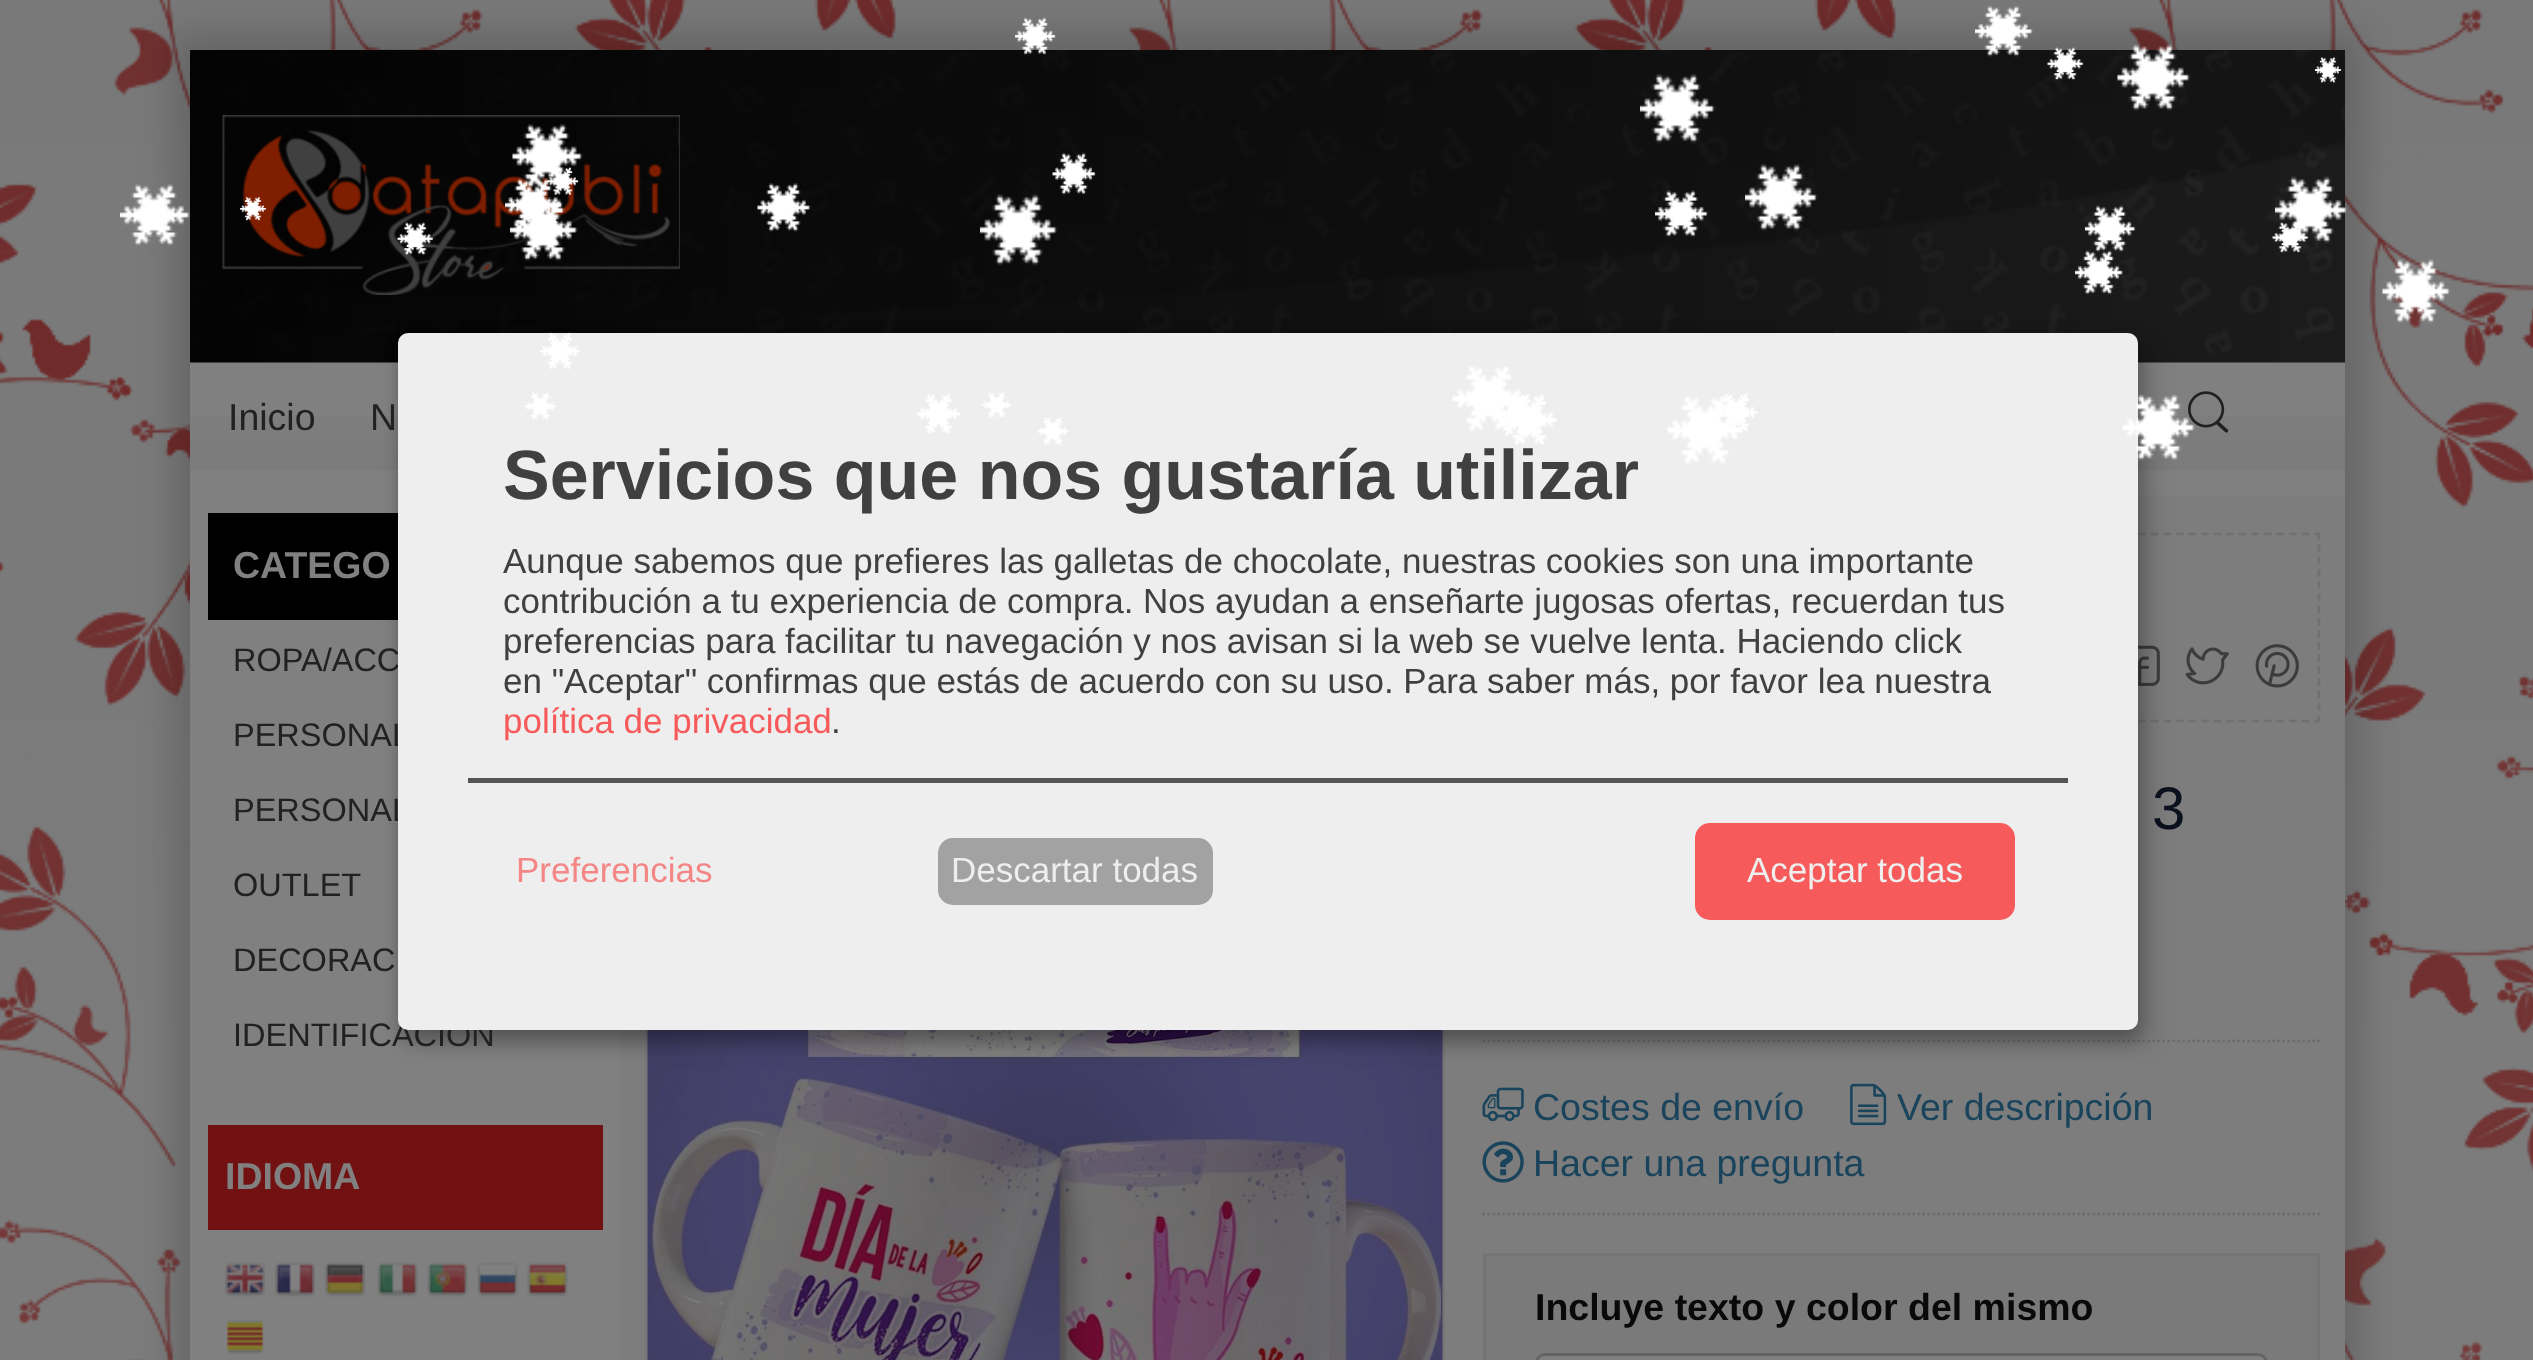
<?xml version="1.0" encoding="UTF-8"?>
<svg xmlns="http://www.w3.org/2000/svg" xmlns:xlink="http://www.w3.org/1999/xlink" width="2533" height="1360">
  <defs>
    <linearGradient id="g1" gradientUnits="userSpaceOnUse" x1="1268" y1="362" x2="1268" y2="470"><stop offset="0" stop-color="#808080" /><stop offset="1" stop-color="#7b7b7b" /></linearGradient>
  </defs>
  <rect width="100%" height="100%" fill="#ffffff" />
  <image x="0" y="0" width="2533" height="1360" xlink:href="image35.png" />
  <rect x="173" y="33" width="2190" height="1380" fill="#000000" fill-opacity="0.16" filter="blur(17.5px)" />
  <rect x="190" y="362" width="2155" height="998" fill="#808080" />
  <image x="190" y="50" width="2155" height="313" xlink:href="image36.png" />
  <image x="1015" y="17" width="41" height="38" xlink:href="image1.png" />
  <image x="1975" y="5" width="59" height="52" xlink:href="image2.png" />
  <image x="2047" y="47" width="37" height="34" xlink:href="image3.png" />
  <image x="2117" y="44" width="74" height="67" xlink:href="image4.png" />
  <image x="2315" y="57" width="27" height="26" xlink:href="image5.png" />
  <image x="1640" y="74" width="76" height="70" xlink:href="image6.png" />
  <image x="222" y="115" width="458" height="180" xlink:href="image37.png" />
  <image x="512" y="124" width="71" height="65" xlink:href="image7.png" />
  <image x="1052" y="152" width="45" height="43" xlink:href="image8.png" />
  <image x="1745" y="164" width="73" height="67" xlink:href="image9.png" />
  <image x="505" y="178" width="59" height="54" xlink:href="image14.png" />
  <image x="547" y="167" width="32" height="29" xlink:href="image10.png" />
  <image x="2275" y="176" width="73" height="68" xlink:href="image11.png" />
  <image x="120" y="184" width="71" height="62" xlink:href="image12.png" />
  <image x="240" y="196" width="27" height="25" xlink:href="image13.png" />
  <image x="757" y="183" width="54" height="49" xlink:href="image15.png" />
  <image x="980" y="194" width="78" height="72" xlink:href="image16.png" />
  <image x="1655" y="190" width="54" height="47" xlink:href="image17.png" />
  <image x="539" y="217" width="25" height="29" xlink:href="image21.png" />
  <image x="510" y="199" width="68" height="62" xlink:href="image18.png" />
  <image x="2075" y="250" width="49" height="45" xlink:href="image23.png" />
  <image x="2085" y="205" width="51" height="47" xlink:href="image19.png" />
  <image x="397" y="222" width="37" height="34" xlink:href="image20.png" />
  <image x="2272" y="222" width="37" height="31" xlink:href="image22.png" />
  <image x="2382" y="259" width="69" height="65" xlink:href="image24.png" />
  <rect x="190" y="416" width="2155" height="54" fill="url(#g1)" />
  <image x="2188" y="391" width="41" height="42" xlink:href="image38.png" />
  <rect x="208" y="513" width="190" height="107" fill="#000000" />
  <rect x="208" y="1125" width="395" height="105" fill="#721111" />
  <image x="225" y="1262" width="40" height="35" xlink:href="image39.png" />
  <image x="275" y="1262" width="40" height="35" xlink:href="image40.png" />
  <image x="325" y="1262" width="40" height="35" xlink:href="image41.png" />
  <image x="377" y="1262" width="41" height="35" xlink:href="image42.png" />
  <image x="427" y="1262" width="41" height="35" xlink:href="image43.png" />
  <image x="477" y="1262" width="41" height="35" xlink:href="image44.png" />
  <image x="527" y="1262" width="41" height="35" xlink:href="image45.png" />
  <image x="226" y="1320" width="38" height="35" xlink:href="image46.png" />
  <rect x="620" y="495" width="1725" height="865" fill="#7d7d7d" />
  <path d="M 645 534 h 1675" fill="none" stroke="#707070" stroke-width="2.5" stroke-dasharray="7.5 5.05" />
  <path d="M 2319 532.5 v 190" fill="none" stroke="#707070" stroke-width="2.5" stroke-dasharray="7.5 4.68" />
  <path d="M 645 721 h 1675" fill="none" stroke="#707070" stroke-width="2.5" stroke-dasharray="7.5 5.05" />
  <image x="2138" y="645" width="22" height="41" xlink:href="image47.png" />
  <image x="2185" y="647" width="44" height="38" xlink:href="image48.png" />
  <image x="2255" y="644" width="44" height="44" xlink:href="image49.png" />
  <rect x="646.5" y="781.5" width="797" height="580" fill="none" stroke="#777777" stroke-width="3" />
  <image x="647" y="1030" width="796" height="330" xlink:href="image50.png" />
  <path d="M 1482.5 1041 h 837.5" fill="none" stroke="#6b6b6b" stroke-width="2.5" stroke-dasharray="2.5 2.5" />
  <image x="1482" y="1087" width="42" height="35" xlink:href="image51.png" />
  <image x="1850" y="1083" width="37" height="43" xlink:href="image52.png" />
  <image x="1482" y="1141" width="42" height="42" xlink:href="image53.png" />
  <path d="M 1482.5 1214 h 837.5" fill="none" stroke="#6b6b6b" stroke-width="2.5" stroke-dasharray="2.5 2.5" />
  <rect x="1484.5" y="1254.5" width="834" height="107" fill="#7a7a7a" stroke="#747474" stroke-width="3" />
  <rect x="1536.5" y="1354.5" width="730" height="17" rx="8.5" fill="#808080" stroke="#646464" stroke-width="3" />
  <rect x="410" y="345" width="1740" height="698" rx="10" fill="#000000" fill-opacity="0.19" filter="blur(12.5px)" />
  <rect x="398" y="343" width="1740" height="697" rx="10" fill="#000000" fill-opacity="0.2" filter="blur(7.5px)" />
  <text x="228" y="430" style="font-family: Liberation Sans; font-size: 37.5px; fill: #212121">Inicio</text>
  <text x="370" y="430" style="font-family: Liberation Sans; font-size: 37.5px; fill: #212121">N</text>
  <text x="233" y="578" style="font-family: Liberation Sans; font-size: 37.5px; font-weight: bold; fill: #808080">CATEGO</text>
  <text x="233" y="671" style="font-family: Liberation Sans; font-size: 32.5px; fill: #212121">ROPA/ACC</text>
  <text x="233" y="746" style="font-family: Liberation Sans; font-size: 32.5px; fill: #212121">PERSONAL</text>
  <text x="233" y="821" style="font-family: Liberation Sans; font-size: 32.5px; fill: #212121">PERSONAL</text>
  <text x="233" y="896" style="font-family: Liberation Sans; font-size: 32.5px; fill: #212121">OUTLET</text>
  <text x="233" y="971" style="font-family: Liberation Sans; font-size: 32.5px; fill: #212121">DECORAC</text>
  <text x="233" y="1046" style="font-family: Liberation Sans; font-size: 32.5px; fill: #212121">IDENTIFICACIÓN</text>
  <text x="225" y="1189" style="font-family: Liberation Sans; font-size: 37.5px; font-weight: bold; fill: #808080">IDIOMA</text>
  <text x="2152" y="829" style="font-family: Liberation Sans; font-size: 60px; fill: #0a111d">3</text>
  <text x="1533" y="1120" style="font-family: Liberation Sans; font-size: 37.5px; fill: #1a445c">Costes de envío</text>
  <text x="1897" y="1120" style="font-family: Liberation Sans; font-size: 37.5px; fill: #1a445c">Ver descripción</text>
  <text x="1533" y="1176" style="font-family: Liberation Sans; font-size: 37.5px; fill: #1a445c">Hacer una pregunta</text>
  <text x="1535" y="1320" style="font-family: Liberation Sans; font-size: 37.5px; font-weight: bold; fill: #090909">Incluye texto y color del mismo</text>
  <rect x="398" y="333" width="1740" height="697" rx="10" fill="#eeeeee" />
  <image x="540" y="332" width="40" height="37" xlink:href="image25.png" />
  <image x="1715" y="393" width="43" height="38" xlink:href="image30.png" />
  <image x="1667" y="396" width="76" height="68" xlink:href="image33.png" />
  <image x="1452" y="366" width="74" height="65" xlink:href="image29.png" />
  <image x="1504" y="394" width="53" height="51" xlink:href="image32.png" />
  <image x="1501" y="394" width="30" height="42" xlink:href="image31.png" />
  <image x="2122" y="394" width="74" height="67" xlink:href="image34.png" />
  <image x="525" y="392" width="31" height="28" xlink:href="image26.png" />
  <image x="1037" y="417" width="31" height="28" xlink:href="image54.png" />
  <image x="917" y="394" width="43" height="40" xlink:href="image27.png" />
  <image x="982" y="392" width="29" height="26" xlink:href="image28.png" />
  <rect x="468" y="778" width="1600" height="5" fill="#555555" />
  <text x="503" y="499" style="font-family: Liberation Sans; font-size: 70px; font-weight: bold; fill: #404040">Servicios que nos gustaría utilizar</text>
  <text x="503" y="573" style="font-family: Liberation Sans; font-size: 35px; fill: #404040">Aunque sabemos que prefieres las galletas de chocolate, nuestras cookies son una importante</text>
  <text x="503" y="613" style="font-family: Liberation Sans; font-size: 35px; fill: #404040">contribución a tu experiencia de compra. Nos ayudan a enseñarte jugosas ofertas, recuerdan tus</text>
  <text x="503" y="653" style="font-family: Liberation Sans; font-size: 35px; fill: #404040">preferencias para facilitar tu navegación y nos avisan si la web se vuelve lenta. Haciendo click</text>
  <text x="503" y="693" style="font-family: Liberation Sans; font-size: 35px; fill: #404040">en "Aceptar" confirmas que estás de acuerdo con su uso. Para saber más, por favor lea nuestra</text>
  <text x="503" y="733" style="font-family: Liberation Sans; font-size: 35px; fill: #f75a5a">política de privacidad</text>
  <text x="831" y="733" style="font-family: Liberation Sans; font-size: 35px; fill: #404040">.</text>
  <text x="516" y="882" style="font-family: Liberation Sans; font-size: 35px; fill: #f48686">Preferencias</text>
  <rect x="938" y="838" width="275" height="67" rx="15" fill="#a2a2a2" />
  <text x="951" y="882" style="font-family: Liberation Sans; font-size: 35px; fill: #eeeeee">Descartar todas</text>
  <rect x="1695" y="823" width="320" height="97" rx="15" fill="#f75a5a" />
  <text x="1747" y="882" style="font-family: Liberation Sans; font-size: 35px; fill: #eeeeee">Aceptar todas</text>
</svg>
